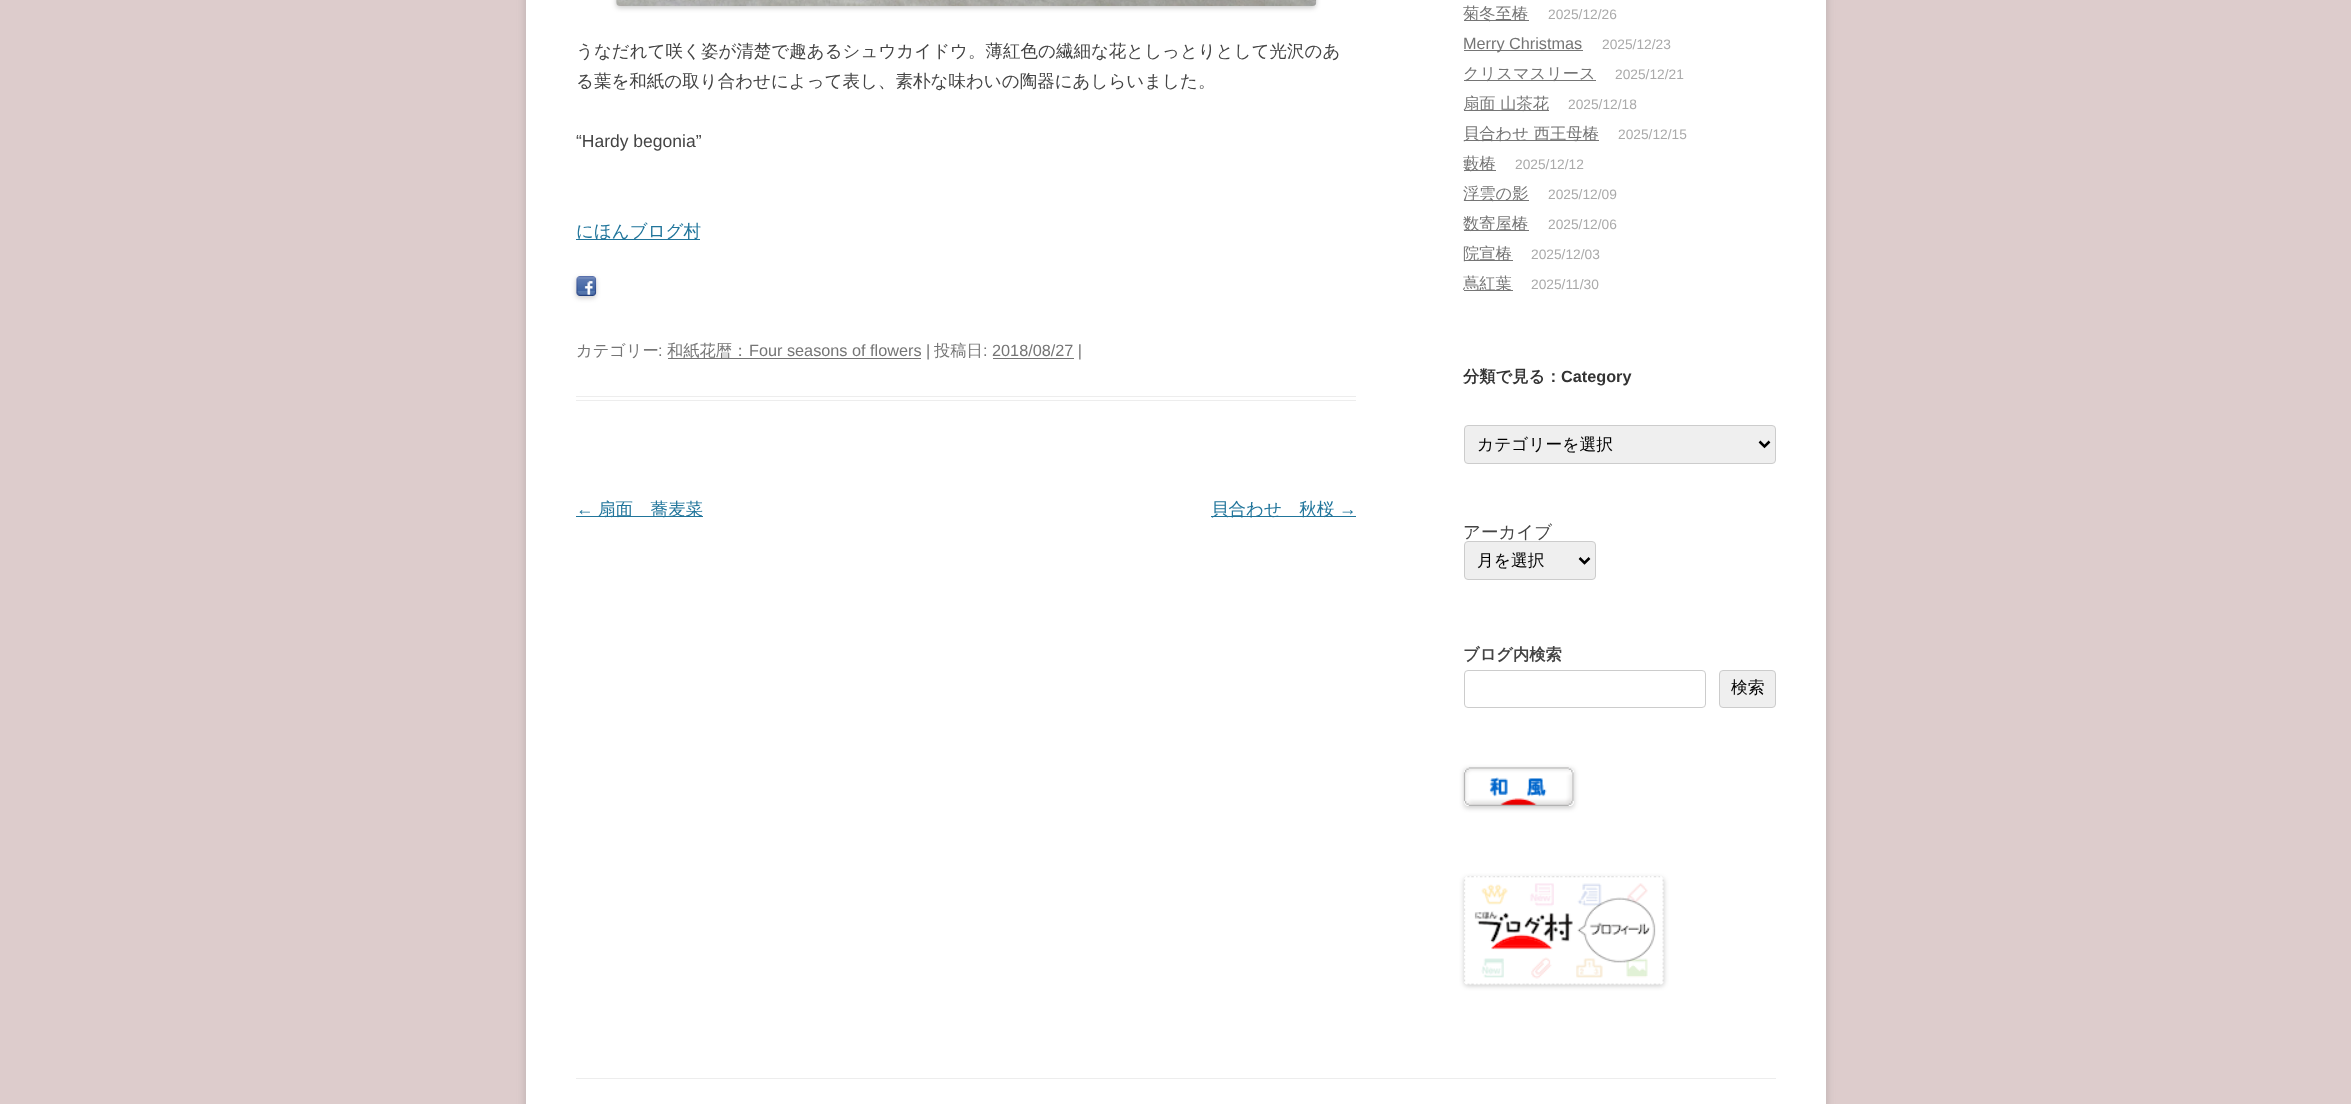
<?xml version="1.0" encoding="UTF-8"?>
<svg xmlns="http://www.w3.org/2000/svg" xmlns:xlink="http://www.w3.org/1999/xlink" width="2351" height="1104">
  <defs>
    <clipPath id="clip1"><path d="M 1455 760 h 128 v 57 h -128 z m 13 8 h 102 c 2 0 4 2 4 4 v 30 c 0 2 -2 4 -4 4 h -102 c -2 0 -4 -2 -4 -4 v -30 c 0 -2 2 -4 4 -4 z" clip-rule="evenodd" /></clipPath>
  </defs>
  <rect width="100%" height="100%" fill="#ddcccc" />
  <rect x="526" y="-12" width="1300" height="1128" fill="#646464" fill-opacity="0.3" filter="blur(4px)" />
  <rect x="526" width="1300" height="1104" fill="#ffffff" />
  <rect x="576" y="396" width="780" height="1" fill="#ededed" />
  <rect x="576" y="400" width="780" height="1" fill="#ededed" />
  <rect x="616" y="-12" width="700" height="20" rx="4" fill="#000000" fill-opacity="0.2" filter="blur(2.5px)" />
  <image x="616" y="0" width="701" height="6" xlink:href="image1.png" />
  <rect x="576" y="239" width="124" height="1" fill="#21759b" />
  <rect x="576" y="278" width="20" height="20" rx="4" fill="#000000" fill-opacity="0.2" filter="blur(2.5px)" />
  <image x="576" y="276" width="21" height="20" xlink:href="image2.png" />
  <rect x="668" y="358" width="253" height="1" fill="#757575" />
  <rect x="993" y="358" width="81" height="1" fill="#757575" />
  <rect x="576" y="516" width="127" height="1" fill="#21759b" />
  <rect x="1211" y="516" width="145" height="1" fill="#21759b" />
  <rect x="1464" y="20" width="65" height="1" fill="#757575" />
  <rect x="1464" y="50" width="119" height="1" fill="#757575" />
  <rect x="1464" y="80" width="132" height="1" fill="#757575" />
  <rect x="1464" y="110" width="85" height="1" fill="#757575" />
  <rect x="1464" y="140" width="135" height="1" fill="#757575" />
  <rect x="1464" y="170" width="32" height="1" fill="#757575" />
  <rect x="1464" y="200" width="65" height="1" fill="#757575" />
  <rect x="1464" y="230" width="65" height="1" fill="#757575" />
  <rect x="1464" y="260" width="49" height="1" fill="#757575" />
  <rect x="1464" y="290" width="49" height="1" fill="#757575" />
  <rect x="1464.5" y="425.5" width="311" height="38" rx="3.5" fill="#efefef" stroke="#cccccc" />
  <path d="M 1759.5 441.5 l 5 5 l 5 -5" fill="none" stroke="#000000" stroke-width="2.5" />
  <rect x="1464.5" y="541.5" width="131" height="38" rx="3.5" fill="#efefef" stroke="#cccccc" />
  <path d="M 1579.5 558 l 5 5 l 5 -5" fill="none" stroke="#000000" stroke-width="2.5" />
  <rect x="1464.5" y="670.5" width="241" height="37" rx="3.5" fill="none" stroke="#cccccc" />
  <rect x="1719.5" y="670.5" width="56" height="37" rx="3.5" fill="#efefef" stroke="#cccccc" />
  <g clip-path="url(#clip1)">
    <rect x="1464" y="769" width="110" height="39" rx="4" fill="#000000" fill-opacity="0.2" filter="blur(2.5px)" />
  </g>
  <image x="1463" y="767" width="111" height="39" xlink:href="image3.png" />
  <rect x="1464" y="878" width="200" height="108" rx="4" fill="#000000" fill-opacity="0.2" filter="blur(2.5px)" />
  <image x="1464" y="876" width="200" height="109" xlink:href="image4.png" />
  <rect x="576" y="1078" width="1200" height="1" fill="#ededed" />
  <text x="576" y="57" style="font-family: WenQuanYi Zen Hei; font-size: 17.5px; font-weight: 500; fill: #444444">うなだれて咲く姿が清楚で趣あるシュウカイドウ。薄紅色の繊細な花としっとりとして光沢のあ</text>
  <text x="576" y="87" style="font-family: WenQuanYi Zen Hei; font-size: 17.5px; font-weight: 500; fill: #444444">る葉を和紙の取り合わせによって表し、素朴な味わいの陶器にあしらいました。</text>
  <text x="576" y="147" style="font-family: Liberation Sans; font-size: 17.5px; fill: #444444">“Hardy begonia”</text>
  <text x="576" y="237" style="font-family: WenQuanYi Zen Hei; font-size: 17.5px; font-weight: 500; fill: #21759b">にほんブログ村</text>
  <text x="576" y="356" style="font-family: WenQuanYi Zen Hei; font-size: 16.25px; font-weight: 500; fill: #757575">カテゴリー</text>
  <text x="658" y="356" style="font-family: Liberation Sans; font-size: 16.25px; fill: #757575">:</text>
  <text x="667" y="356" style="font-family: WenQuanYi Zen Hei; font-size: 16.25px; font-weight: 500; fill: #757575">和紙花暦：</text>
  <text x="749" y="356" style="font-family: Liberation Sans; font-size: 16.25px; fill: #757575">Four seasons of flowers |</text>
  <text x="934" y="356" style="font-family: WenQuanYi Zen Hei; font-size: 16.25px; font-weight: 500; fill: #757575">投稿日</text>
  <text x="983" y="356" style="font-family: Liberation Sans; font-size: 16.25px; fill: #757575">: 2018/08/27 |</text>
  <text x="576" y="515" style="font-family: Liberation Sans; font-size: 17.5px; fill: #21759b">←</text>
  <text x="598" y="515" style="font-family: WenQuanYi Zen Hei; font-size: 17.5px; font-weight: 500; fill: #21759b">扇面　蕎麦菜</text>
  <text x="1211" y="515" style="font-family: WenQuanYi Zen Hei; font-size: 17.5px; font-weight: 500; fill: #21759b">貝合わせ　秋桜</text>
  <text x="1339" y="515" style="font-family: Liberation Sans; font-size: 17.5px; fill: #21759b">→</text>
  <text x="1463" y="19" style="font-family: WenQuanYi Zen Hei; font-size: 16.25px; font-weight: 500; fill: #757575">菊冬至椿</text>
  <text x="1548" y="19" style="font-family: Liberation Sans; font-size: 13.75px; fill: #aaaaaa">2025/12/26</text>
  <text x="1463" y="49" style="font-family: Liberation Sans; font-size: 16.25px; fill: #757575">Merry Christmas</text>
  <text x="1602" y="49" style="font-family: Liberation Sans; font-size: 13.75px; fill: #aaaaaa">2025/12/23</text>
  <text x="1463" y="79" style="font-family: WenQuanYi Zen Hei; font-size: 16.25px; font-weight: 500; fill: #757575">クリスマスリース</text>
  <text x="1615" y="79" style="font-family: Liberation Sans; font-size: 13.75px; fill: #aaaaaa">2025/12/21</text>
  <text x="1463" y="109" style="font-family: WenQuanYi Zen Hei; font-size: 16.25px; font-weight: 500; fill: #757575">扇面 山茶花</text>
  <text x="1568" y="109" style="font-family: Liberation Sans; font-size: 13.75px; fill: #aaaaaa">2025/12/18</text>
  <text x="1463" y="139" style="font-family: WenQuanYi Zen Hei; font-size: 16.25px; font-weight: 500; fill: #757575">貝合わせ 西王母椿</text>
  <text x="1618" y="139" style="font-family: Liberation Sans; font-size: 13.75px; fill: #aaaaaa">2025/12/15</text>
  <text x="1463" y="169" style="font-family: WenQuanYi Zen Hei; font-size: 16.25px; font-weight: 500; fill: #757575">藪椿</text>
  <text x="1515" y="169" style="font-family: Liberation Sans; font-size: 13.75px; fill: #aaaaaa">2025/12/12</text>
  <text x="1463" y="199" style="font-family: WenQuanYi Zen Hei; font-size: 16.25px; font-weight: 500; fill: #757575">浮雲の影</text>
  <text x="1548" y="199" style="font-family: Liberation Sans; font-size: 13.75px; fill: #aaaaaa">2025/12/09</text>
  <text x="1463" y="229" style="font-family: WenQuanYi Zen Hei; font-size: 16.25px; font-weight: 500; fill: #757575">数寄屋椿</text>
  <text x="1548" y="229" style="font-family: Liberation Sans; font-size: 13.75px; fill: #aaaaaa">2025/12/06</text>
  <text x="1463" y="259" style="font-family: WenQuanYi Zen Hei; font-size: 16.25px; font-weight: 500; fill: #757575">院宣椿</text>
  <text x="1531" y="259" style="font-family: Liberation Sans; font-size: 13.75px; fill: #aaaaaa">2025/12/03</text>
  <text x="1463" y="289" style="font-family: WenQuanYi Zen Hei; font-size: 16.25px; font-weight: 500; fill: #757575">蔦紅葉</text>
  <text x="1531" y="289" style="font-family: Liberation Sans; font-size: 13.75px; fill: #aaaaaa">2025/11/30</text>
  <text x="1463" y="382" style="font-family: WenQuanYi Zen Hei; font-size: 16.25px; font-weight: bold; fill: #333333">分類で見る：</text>
  <text x="1561" y="382" style="font-family: Liberation Sans; font-size: 16.25px; font-weight: bold; fill: #333333">Category</text>
  <text x="1477" y="450" style="font-family: WenQuanYi Zen Hei; font-size: 16.75px; font-weight: 500; fill: #000000">カテゴリーを選択</text>
  <text x="1463" y="538" style="font-family: WenQuanYi Zen Hei; font-size: 17.5px; font-weight: 500; fill: #444444">アーカイブ</text>
  <text x="1477" y="566" style="font-family: WenQuanYi Zen Hei; font-size: 16.75px; font-weight: 500; fill: #000000">月を選択</text>
  <text x="1463" y="660" style="font-family: WenQuanYi Zen Hei; font-size: 16.25px; font-weight: bold; fill: #444444">ブログ内検索</text>
  <text x="1731" y="693" style="font-family: WenQuanYi Zen Hei; font-size: 16.75px; font-weight: 500; fill: #000000">検索</text>
</svg>
